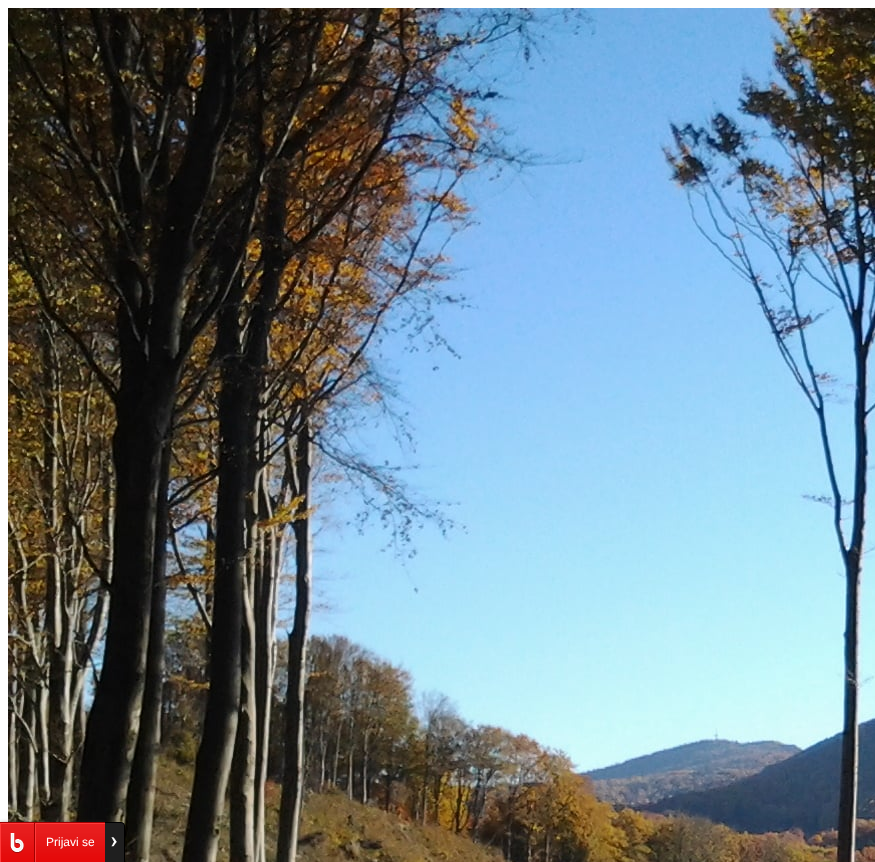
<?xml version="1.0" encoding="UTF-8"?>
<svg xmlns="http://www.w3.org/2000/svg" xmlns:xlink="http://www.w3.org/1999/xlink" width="875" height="862">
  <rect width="100%" height="100%" fill="#ffffff" />
  <image x="8" y="8" width="867" height="854" xlink:href="image1.png" />
  <rect y="824" width="105" height="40" fill="#333333" filter="blur(2.5px)" />
  <image x="0" y="822" width="105" height="40" xlink:href="image2.png" />
  <image x="0" y="823" width="36" height="39" xlink:href="image3.png" />
  <image x="105" y="822" width="20" height="40" xlink:href="image4.png" />
  <text x="46" y="846" style="font-family: Liberation Sans; font-size: 12px; fill: #ffffff">Prijavi se</text>
</svg>
